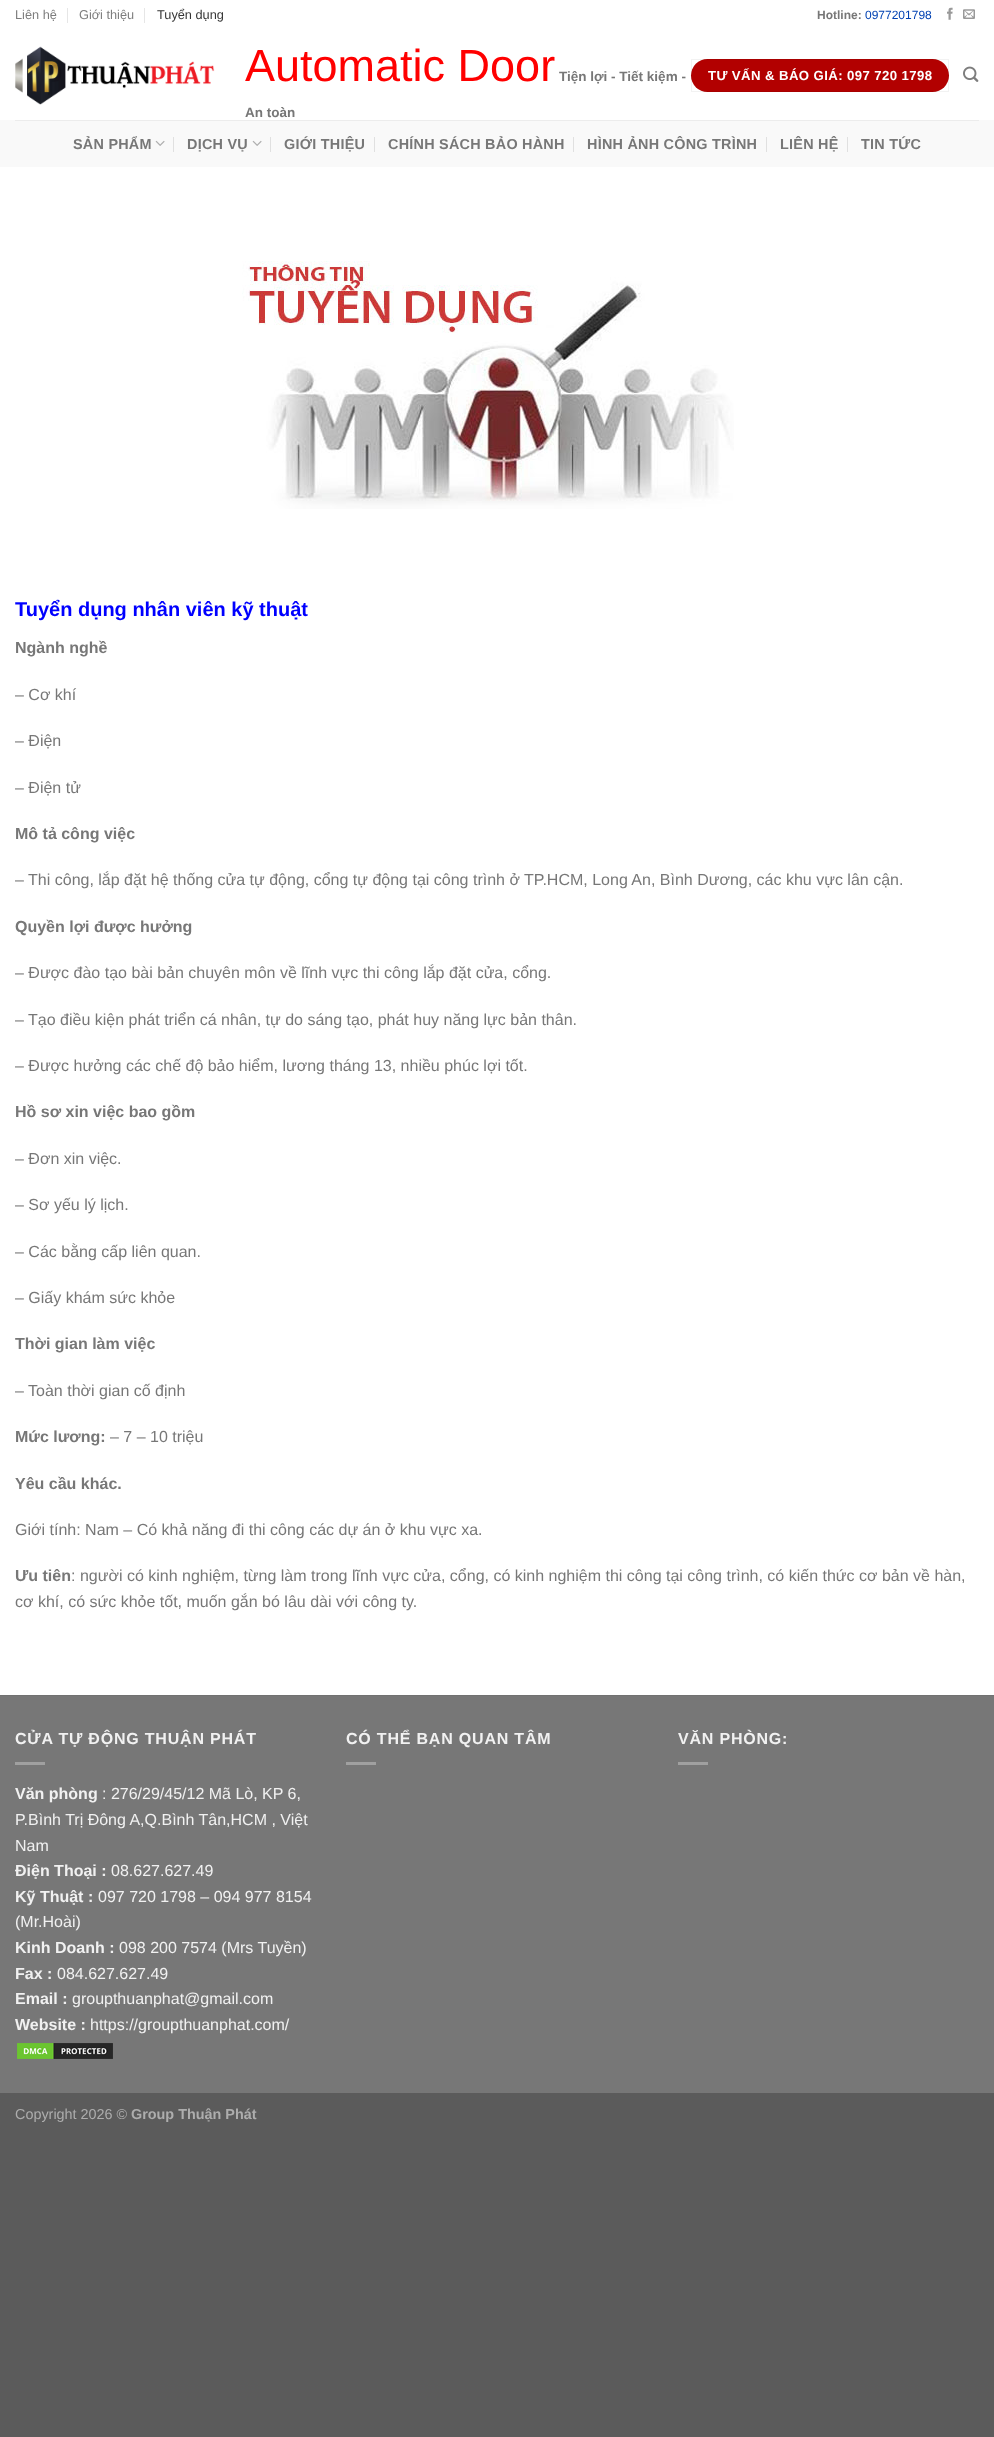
<?xml version="1.0" encoding="UTF-8"?>
<svg xmlns="http://www.w3.org/2000/svg" xmlns:xlink="http://www.w3.org/1999/xlink" width="994" height="2437">
  <rect width="100%" height="100%" fill="#5b5b5b" />
  <rect width="994" height="1695" fill="#ffffff" />
  <rect x="67" y="8" width="1" height="15" fill="#e6e6e6" />
  <rect x="144" y="8" width="1" height="15" fill="#e6e6e6" />
  <image x="947" y="7" width="6" height="13" xlink:href="image1.png" />
  <image x="963" y="9" width="12" height="10" xlink:href="image2.png" />
  <image x="15" y="46" width="200" height="59" xlink:href="image3.png" />
  <rect x="691" y="59" width="258" height="33" rx="16.5" fill="#b20000" />
  <rect x="691.5" y="59.5" width="257" height="32" fill="none" stroke="#000000" stroke-opacity="0.05" />
  <image x="963" y="66" width="16" height="16" xlink:href="image4.png" />
  <rect y="120" width="994" height="47" fill="#f9f9f9" />
  <rect x="15" y="120" width="964" height="1" fill="#ececec" />
  <image x="155" y="140" width="10" height="6" xlink:href="image5.png" />
  <rect x="173" y="137" width="1" height="15" fill="#e0e0e0" />
  <image x="252" y="140" width="10" height="6" xlink:href="image5.png" />
  <rect x="270" y="137" width="1" height="15" fill="#e0e0e0" />
  <rect x="374" y="137" width="1" height="15" fill="#e0e0e0" />
  <rect x="573" y="137" width="1" height="15" fill="#e0e0e0" />
  <rect x="766" y="137" width="1" height="15" fill="#e0e0e0" />
  <rect x="847" y="137" width="1" height="15" fill="#e0e0e0" />
  <image x="242" y="261" width="492" height="248" xlink:href="image6.png" />
  <rect y="1696" width="994" height="397" fill="#777777" />
  <rect y="1695" width="994" height="1" fill="#717171" />
  <rect x="15" y="1762" width="30" height="3" fill="#a0a0a0" />
  <image x="17" y="2043" width="96" height="16" xlink:href="image7.png" />
  <rect x="346" y="1762" width="30" height="3" fill="#a0a0a0" />
  <rect x="678" y="1762" width="30" height="3" fill="#a0a0a0" />
  <text x="15" y="19" style="font-family: Liberation Sans; font-size: 12.75px; fill: #7d7d7d">Liên hệ</text>
  <text x="79" y="19" style="font-family: Liberation Sans; font-size: 12.75px; fill: #7d7d7d">Giới thiệu</text>
  <text x="157" y="19" style="font-family: Liberation Sans; font-size: 12.75px; fill: #353535">Tuyển dụng</text>
  <text x="817" y="19" style="font-family: Liberation Sans; font-size: 12px; font-weight: bold; fill: #777777">Hotline:</text>
  <text x="865" y="19" style="font-family: Liberation Sans; font-size: 12px; fill: #0041b2">0977201798</text>
  <text x="245" y="81" style="font-family: Liberation Sans; font-size: 45px; fill: #ff0000">Automatic Door</text>
  <text x="559" y="81" style="font-family: Liberation Sans; font-size: 13.5px; font-weight: bold; fill: #777777">Tiện lợi - Tiết kiệm -</text>
  <text x="245" y="117" style="font-family: Liberation Sans; font-size: 13.5px; font-weight: bold; fill: #777777">An toàn</text>
  <text x="708" y="80" style="font-family: Liberation Sans; font-size: 13.2px; font-weight: bold; letter-spacing: 0.4px; fill: #ffffff">TƯ VẤN &amp; BÁO GIÁ: 097 720 1798</text>
  <text x="73" y="149" style="font-family: Liberation Sans; font-size: 14.4px; font-weight: bold; letter-spacing: 0.25px; fill: #777777">SẢN PHẨM</text>
  <text x="187" y="149" style="font-family: Liberation Sans; font-size: 14.4px; font-weight: bold; letter-spacing: 0.25px; fill: #777777">DỊCH VỤ</text>
  <text x="284" y="149" style="font-family: Liberation Sans; font-size: 14.4px; font-weight: bold; letter-spacing: 0.25px; fill: #777777">GIỚI THIỆU</text>
  <text x="388" y="149" style="font-family: Liberation Sans; font-size: 14.4px; font-weight: bold; letter-spacing: 0.25px; fill: #777777">CHÍNH SÁCH BẢO HÀNH</text>
  <text x="587" y="149" style="font-family: Liberation Sans; font-size: 14.4px; font-weight: bold; letter-spacing: 0.25px; fill: #777777">HÌNH ẢNH CÔNG TRÌNH</text>
  <text x="780" y="149" style="font-family: Liberation Sans; font-size: 14.4px; font-weight: bold; letter-spacing: 0.25px; fill: #777777">LIÊN HỆ</text>
  <text x="861" y="149" style="font-family: Liberation Sans; font-size: 14.4px; font-weight: bold; letter-spacing: 0.25px; fill: #777777">TIN TỨC</text>
  <text x="15" y="616" style="font-family: Liberation Sans; font-size: 20px; font-weight: bold; fill: #0000ff">Tuyển dụng nhân viên kỹ thuật</text>
  <text x="15" y="653" style="font-family: Liberation Sans; font-size: 16px; font-weight: bold; fill: #777777">Ngành nghề</text>
  <text x="15" y="700" style="font-family: Liberation Sans; font-size: 16px; fill: #777777">– Cơ khí</text>
  <text x="15" y="746" style="font-family: Liberation Sans; font-size: 16px; fill: #777777">– Điện</text>
  <text x="15" y="793" style="font-family: Liberation Sans; font-size: 16px; fill: #777777">– Điện tử</text>
  <text x="15" y="839" style="font-family: Liberation Sans; font-size: 16px; font-weight: bold; fill: #777777">Mô tả công việc</text>
  <text x="15" y="885" style="font-family: Liberation Sans; font-size: 16px; fill: #777777">– Thi công, lắp đặt hệ thống cửa tự động, cổng tự động tại công trình ở TP.HCM, Long An, Bình Dương, các khu vực lân cận.</text>
  <text x="15" y="932" style="font-family: Liberation Sans; font-size: 16px; font-weight: bold; fill: #777777">Quyền lợi được hưởng</text>
  <text x="15" y="978" style="font-family: Liberation Sans; font-size: 16px; fill: #777777">– Được đào tạo bài bản chuyên môn về lĩnh vực thi công lắp đặt cửa, cổng.</text>
  <text x="15" y="1025" style="font-family: Liberation Sans; font-size: 16px; fill: #777777">– Tạo điều kiện phát triển cá nhân, tự do sáng tạo, phát huy năng lực bản thân.</text>
  <text x="15" y="1071" style="font-family: Liberation Sans; font-size: 16px; fill: #777777">– Được hưởng các chế độ bảo hiểm, lương tháng 13, nhiều phúc lợi tốt.</text>
  <text x="15" y="1117" style="font-family: Liberation Sans; font-size: 16px; font-weight: bold; fill: #777777">Hồ sơ xin việc bao gồm</text>
  <text x="15" y="1164" style="font-family: Liberation Sans; font-size: 16px; fill: #777777">– Đơn xin việc.</text>
  <text x="15" y="1210" style="font-family: Liberation Sans; font-size: 16px; fill: #777777">– Sơ yếu lý lịch.</text>
  <text x="15" y="1257" style="font-family: Liberation Sans; font-size: 16px; fill: #777777">– Các bằng cấp liên quan.</text>
  <text x="15" y="1303" style="font-family: Liberation Sans; font-size: 16px; fill: #777777">– Giấy khám sức khỏe</text>
  <text x="15" y="1349" style="font-family: Liberation Sans; font-size: 16px; font-weight: bold; fill: #777777">Thời gian làm việc</text>
  <text x="15" y="1396" style="font-family: Liberation Sans; font-size: 16px; fill: #777777">– Toàn thời gian cố định</text>
  <text x="15" y="1442" style="font-family: Liberation Sans; font-size: 16px; font-weight: bold; fill: #777777">Mức lương:</text>
  <text x="110" y="1442" style="font-family: Liberation Sans; font-size: 16px; fill: #777777">– 7 – 10 triệu</text>
  <text x="15" y="1489" style="font-family: Liberation Sans; font-size: 16px; font-weight: bold; fill: #777777">Yêu cầu khác.</text>
  <text x="15" y="1535" style="font-family: Liberation Sans; font-size: 16px; fill: #777777">Giới tính: Nam – Có khả năng đi thi công các dự án ở khu vực xa.</text>
  <text x="15" y="1581" style="font-family: Liberation Sans; font-size: 16px; font-weight: bold; fill: #777777">Ưu tiên</text>
  <text x="71" y="1581" style="font-family: Liberation Sans; font-size: 16px; fill: #777777">: người có kinh nghiệm, từng làm trong lĩnh vực cửa, cổng, có kinh nghiệm thi công tại công trình, có kiến thức cơ bản về hàn,</text>
  <text x="15" y="1607" style="font-family: Liberation Sans; font-size: 16px; fill: #777777">cơ khí, có sức khỏe tốt, muốn gắn bó lâu dài với công ty.</text>
  <text x="15" y="1744" style="font-family: Liberation Sans; font-size: 16px; font-weight: bold; letter-spacing: 0.8px; fill: #f1f1f1">CỬA TỰ ĐỘNG THUẬN PHÁT</text>
  <text x="15" y="1799" style="font-family: Liberation Sans; font-size: 16px; font-weight: bold; fill: #f1f1f1">Văn phòng</text>
  <text x="102" y="1799" style="font-family: Liberation Sans; font-size: 16px; fill: #f1f1f1">: 276/29/45/12 Mã Lò, KP 6,</text>
  <text x="15" y="1825" style="font-family: Liberation Sans; font-size: 16px; fill: #f1f1f1">P.Bình Trị Đông A,Q.Bình Tân,HCM , Việt</text>
  <text x="15" y="1851" style="font-family: Liberation Sans; font-size: 16px; fill: #f1f1f1">Nam</text>
  <text x="15" y="1876" style="font-family: Liberation Sans; font-size: 16px; font-weight: bold; fill: #f1f1f1">Điện Thoại :</text>
  <text x="111" y="1876" style="font-family: Liberation Sans; font-size: 16px; fill: #f1f1f1">08.627.627.49</text>
  <text x="15" y="1902" style="font-family: Liberation Sans; font-size: 16px; font-weight: bold; fill: #f1f1f1">Kỹ Thuật :</text>
  <text x="98" y="1902" style="font-family: Liberation Sans; font-size: 16px; fill: #f1f1f1">097 720 1798 – 094 977 8154</text>
  <text x="15" y="1927" style="font-family: Liberation Sans; font-size: 16px; fill: #f1f1f1">(Mr.Hoài)</text>
  <text x="15" y="1953" style="font-family: Liberation Sans; font-size: 16px; font-weight: bold; fill: #f1f1f1">Kinh Doanh :</text>
  <text x="119" y="1953" style="font-family: Liberation Sans; font-size: 16px; fill: #f1f1f1">098 200 7574 (Mrs Tuyền)</text>
  <text x="15" y="1979" style="font-family: Liberation Sans; font-size: 16px; font-weight: bold; fill: #f1f1f1">Fax :</text>
  <text x="57" y="1979" style="font-family: Liberation Sans; font-size: 16px; fill: #f1f1f1">084.627.627.49</text>
  <text x="15" y="2004" style="font-family: Liberation Sans; font-size: 16px; font-weight: bold; fill: #f1f1f1">Email :</text>
  <text x="72" y="2004" style="font-family: Liberation Sans; font-size: 16px; fill: #f1f1f1">groupthuanphat@gmail.com</text>
  <text x="15" y="2030" style="font-family: Liberation Sans; font-size: 16px; font-weight: bold; fill: #f1f1f1">Website :</text>
  <text x="90" y="2030" style="font-family: Liberation Sans; font-size: 16px; fill: #f1f1f1">https://groupthuanphat.com/</text>
  <text x="346" y="1744" style="font-family: Liberation Sans; font-size: 16px; font-weight: bold; letter-spacing: 0.8px; fill: #f1f1f1">CÓ THỂ BẠN QUAN TÂM</text>
  <text x="678" y="1744" style="font-family: Liberation Sans; font-size: 16px; font-weight: bold; letter-spacing: 0.8px; fill: #f1f1f1">VĂN PHÒNG:</text>
  <text x="15" y="2119" style="font-family: Liberation Sans; font-size: 14.4px; fill: #adadad">Copyright 2026 ©</text>
  <text x="131" y="2119" style="font-family: Liberation Sans; font-size: 14.4px; font-weight: bold; fill: #adadad">Group Thuận Phát</text>
</svg>
